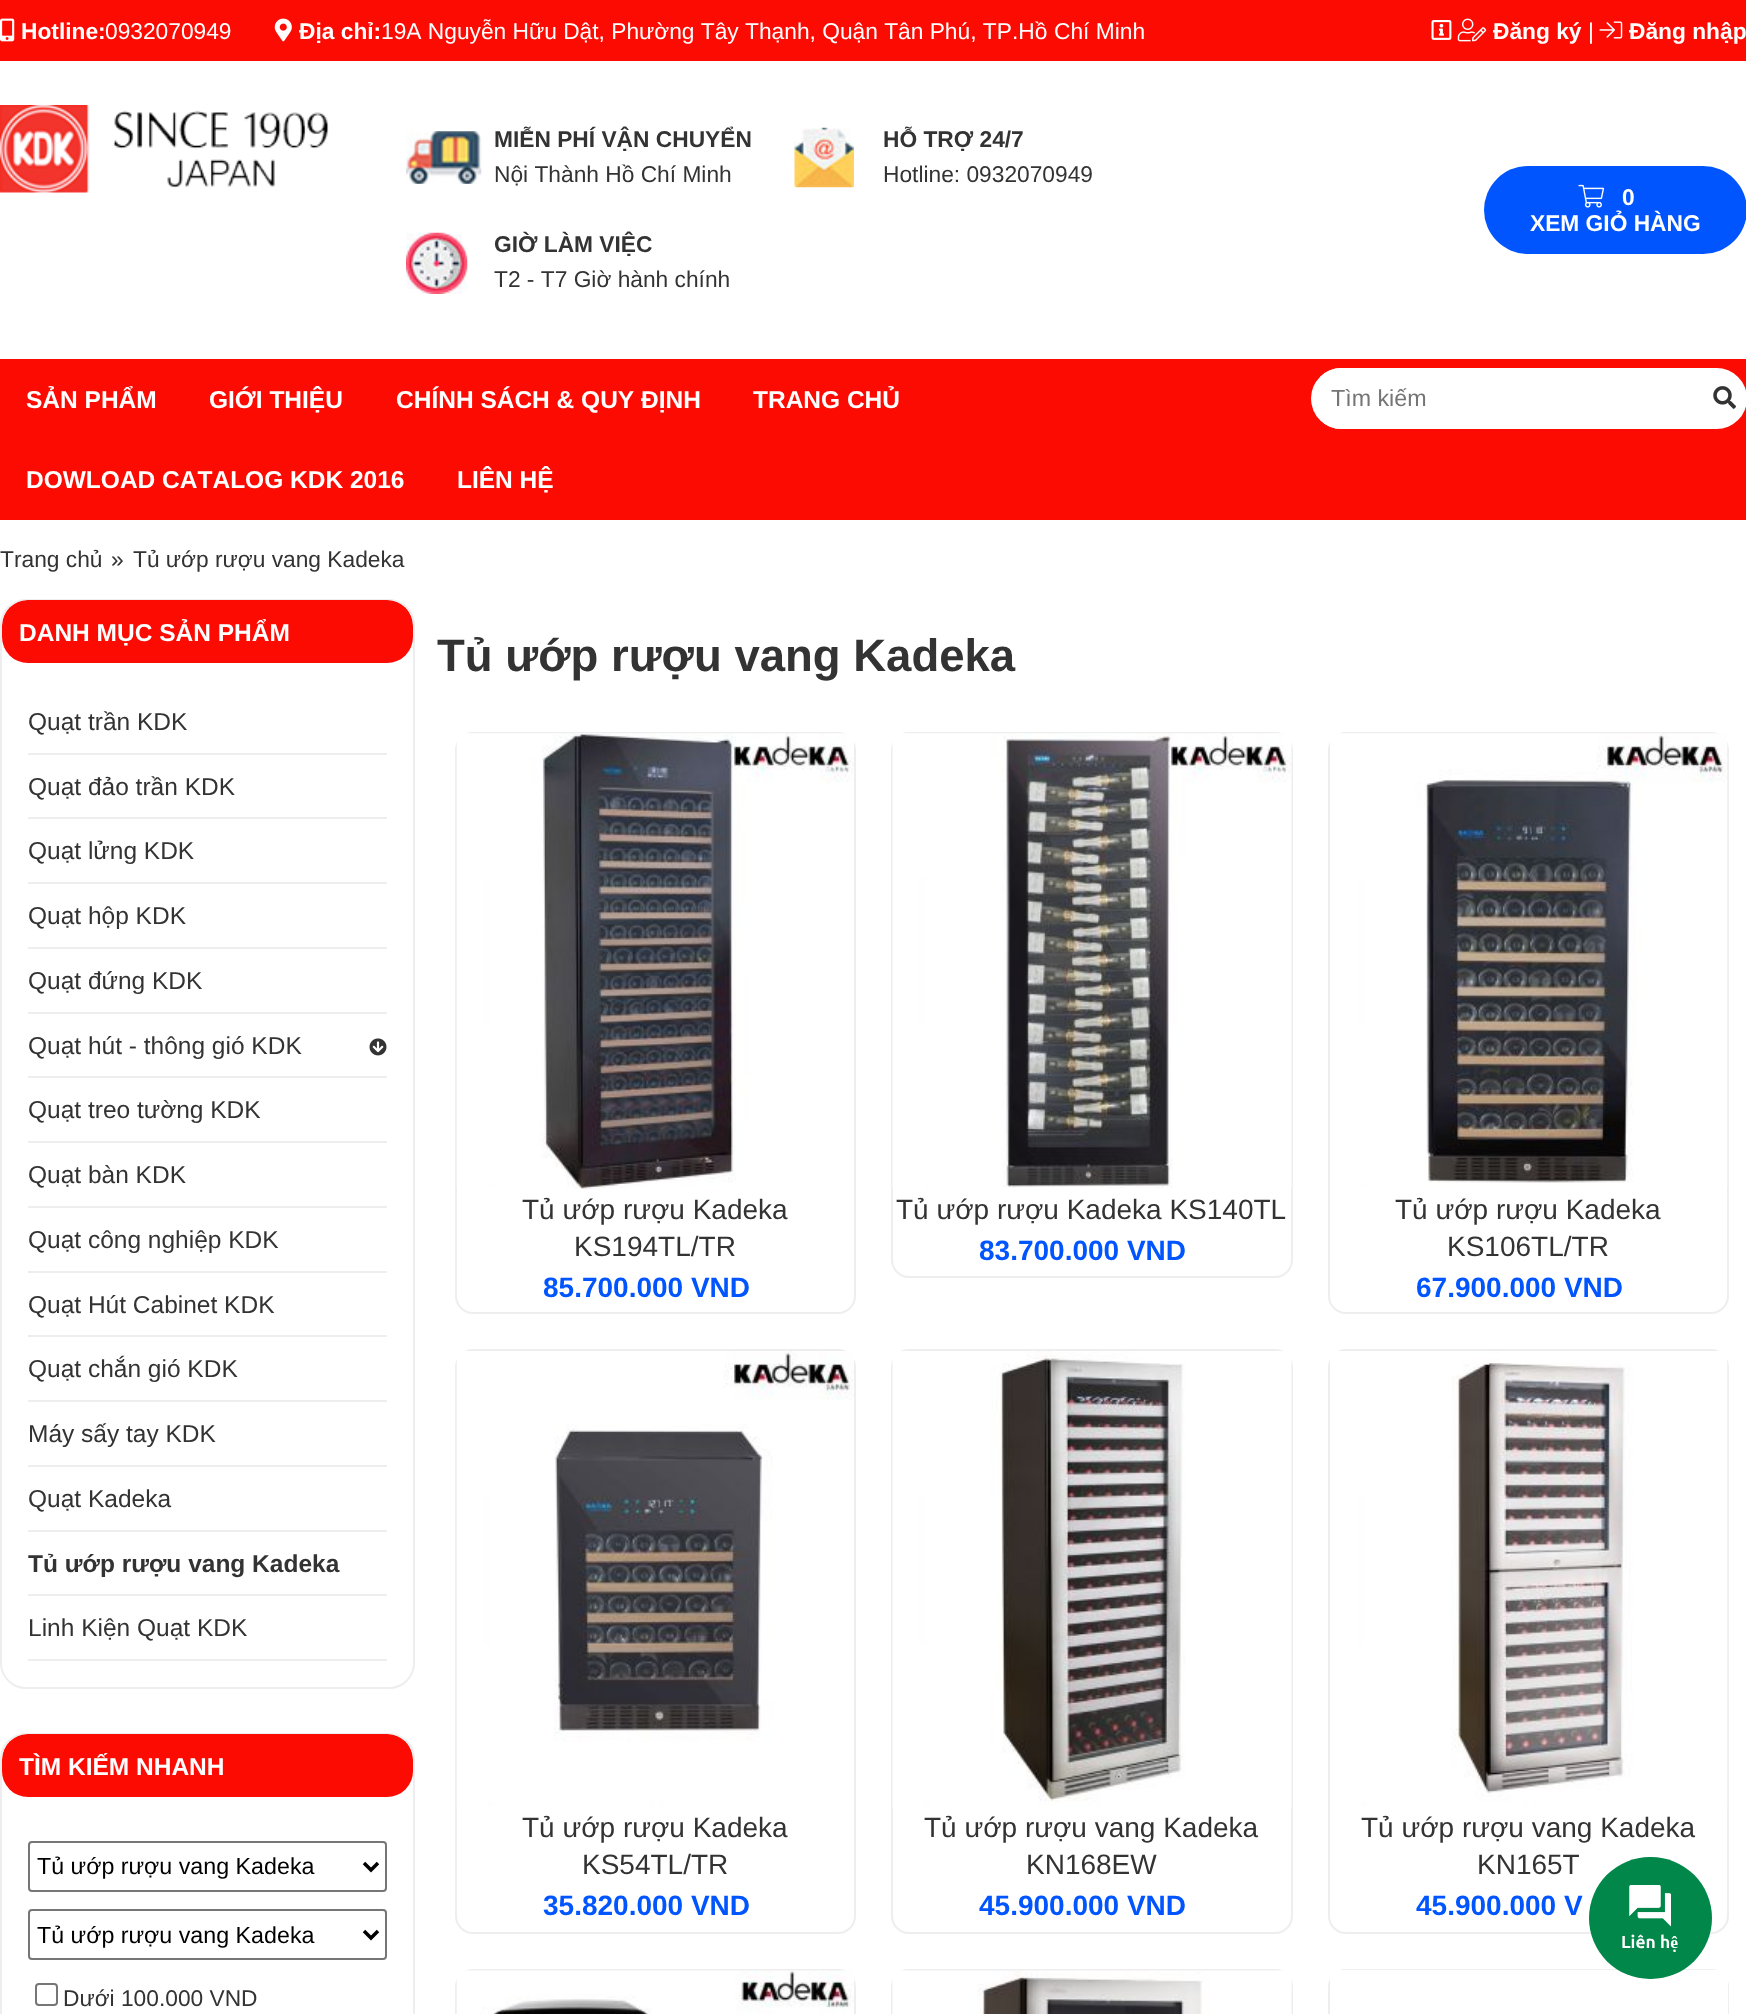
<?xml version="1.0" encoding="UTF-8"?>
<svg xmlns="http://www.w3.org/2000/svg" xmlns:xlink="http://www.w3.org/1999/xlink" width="1746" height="2014">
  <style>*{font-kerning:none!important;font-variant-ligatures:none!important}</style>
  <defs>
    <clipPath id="clip1"><rect x="1311" y="368" width="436" height="61" rx="30.5" /></clipPath>
    <clipPath id="clip2"><rect x="2" y="600" width="411" height="1087" rx="25" /></clipPath>
    <clipPath id="clip3"><rect x="2" y="1734" width="411" height="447" rx="25" /></clipPath>
  </defs>
  <rect width="100%" height="100%" fill="#ffffff" />
  <rect width="1746" height="61" fill="#fc0b03" />
  <image x="0" y="18" width="15" height="24" xlink:href="image1.png" />
  <image x="274" y="18" width="18" height="24" xlink:href="image2.png" />
  <image x="1431" y="20" width="21" height="20" xlink:href="image3.png" />
  <image x="1457" y="18" width="30" height="24" xlink:href="image4.png" />
  <image x="1599" y="21" width="24" height="18" xlink:href="image5.png" />
  <image x="0" y="105" width="329" height="88" xlink:href="image6.png" />
  <image x="406" y="131" width="76" height="53" xlink:href="image7.png" />
  <image x="794" y="127" width="60" height="61" xlink:href="image8.png" />
  <image x="406" y="232" width="62" height="62" xlink:href="image9.png" />
  <rect x="1484" y="166" width="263" height="88" rx="44" fill="#0055fe" />
  <image x="1578" y="184" width="27" height="24" xlink:href="image10.png" />
  <rect y="359" width="1746" height="161" fill="#fc0b03" />
  <rect x="1311" y="368" width="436" height="61" rx="30.5" fill="#ffffff" />
  <g clip-path="url(#clip1)">
    <rect x="1320" y="368" width="393" height="61" fill="#ffffff" />
  </g>
  <image x="1713" y="386" width="23" height="23" xlink:href="image11.png" />
  <rect x="1" y="600" width="413" height="1088" rx="25" fill="none" stroke="#eeeeee" stroke-width="2" />
  <g clip-path="url(#clip2)">
    <rect x="2" y="600" width="411" height="63" rx="26" fill="#fc0b03" />
  </g>
  <rect x="28" y="753" width="359" height="2" fill="#eeeeee" />
  <rect x="28" y="817" width="359" height="2" fill="#eeeeee" />
  <rect x="28" y="882" width="359" height="2" fill="#eeeeee" />
  <rect x="28" y="947" width="359" height="2" fill="#eeeeee" />
  <rect x="28" y="1012" width="359" height="2" fill="#eeeeee" />
  <rect x="28" y="1076" width="359" height="2" fill="#eeeeee" />
  <image x="369" y="1038" width="18" height="18" xlink:href="image12.png" />
  <rect x="28" y="1141" width="359" height="2" fill="#eeeeee" />
  <rect x="28" y="1206" width="359" height="2" fill="#eeeeee" />
  <rect x="28" y="1271" width="359" height="2" fill="#eeeeee" />
  <rect x="28" y="1335" width="359" height="2" fill="#eeeeee" />
  <rect x="28" y="1400" width="359" height="2" fill="#eeeeee" />
  <rect x="28" y="1465" width="359" height="2" fill="#eeeeee" />
  <rect x="28" y="1530" width="359" height="2" fill="#eeeeee" />
  <rect x="28" y="1594" width="359" height="2" fill="#eeeeee" />
  <rect x="28" y="1659" width="359" height="2" fill="#eeeeee" />
  <rect x="1" y="1734" width="413" height="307" rx="25" fill="none" stroke="#eeeeee" stroke-width="2" />
  <g clip-path="url(#clip3)">
    <rect x="2" y="1734" width="411" height="63" rx="26" fill="#fc0b03" />
  </g>
  <rect x="29" y="1842" width="357" height="49" rx="3" fill="none" stroke="#767676" stroke-width="2" />
  <path d="M 364 1863 l 7 7 l 7 -7" fill="none" stroke="#000000" stroke-width="3.5" />
  <rect x="29" y="1910" width="357" height="49" rx="3" fill="none" stroke="#767676" stroke-width="2" />
  <path d="M 364 1931 l 7 7 l 7 -7" fill="none" stroke="#000000" stroke-width="3.5" />
  <rect x="36" y="1984" width="21" height="21" rx="3" fill="none" stroke="#767676" stroke-width="2" />
  <rect x="456" y="733" width="399" height="580" rx="17" fill="none" stroke="#eeeeee" stroke-width="2" />
  <image x="456" y="733" width="398" height="456" xlink:href="image13.png" />
  <rect x="892" y="733" width="400" height="544" rx="17" fill="none" stroke="#eeeeee" stroke-width="2" />
  <image x="892" y="733" width="400" height="455" xlink:href="image14.png" />
  <rect x="1329" y="733" width="399" height="580" rx="17" fill="none" stroke="#eeeeee" stroke-width="2" />
  <image x="1330" y="733" width="398" height="455" xlink:href="image15.png" />
  <rect x="456" y="1350" width="399" height="583" rx="17" fill="none" stroke="#eeeeee" stroke-width="2" />
  <image x="456" y="1351" width="398" height="456" xlink:href="image16.png" />
  <rect x="892" y="1350" width="400" height="583" rx="17" fill="none" stroke="#eeeeee" stroke-width="2" />
  <image x="892" y="1351" width="400" height="457" xlink:href="image17.png" />
  <rect x="1329" y="1350" width="399" height="583" rx="17" fill="none" stroke="#eeeeee" stroke-width="2" />
  <image x="1330" y="1351" width="398" height="456" xlink:href="image18.png" />
  <rect x="456" y="1970" width="399" height="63" rx="17" fill="none" stroke="#eeeeee" stroke-width="2" />
  <image x="456" y="1970" width="398" height="44" xlink:href="image19.png" />
  <rect x="892" y="1970" width="400" height="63" rx="17" fill="none" stroke="#eeeeee" stroke-width="2" />
  <image x="892" y="1970" width="400" height="44" xlink:href="image20.png" />
  <rect x="1329" y="1970" width="399" height="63" rx="17" fill="none" stroke="#eeeeee" stroke-width="2" />
  <rect x="1330" y="1970" width="398" height="44" fill="#ffffff" />
  <rect x="1589" y="1857" width="123" height="122" rx="61" fill="#008749" />
  <image x="1629" y="1885" width="42" height="42" xlink:href="image21.png" />
  <text x="21" y="39" style="font-family: Liberation Sans; font-size: 22.75px; font-weight: bold; fill: #ffffff">Hotline:</text>
  <text x="105" y="39" style="font-family: Liberation Sans; font-size: 22.75px; fill: #ffffff">0932070949</text>
  <text x="299" y="39" style="font-family: Liberation Sans; font-size: 22.75px; font-weight: bold; fill: #ffffff">Địa chỉ:</text>
  <text x="381" y="39" style="font-family: Liberation Sans; font-size: 22.75px; fill: #ffffff">19A Nguyễn Hữu Dật, Phường Tây Thạnh, Quận Tân Phú, TP.Hồ</text>
  <text x="1054" y="39" style="font-family: Liberation Sans; font-size: 22.75px; fill: #ffffff">Chí Minh</text>
  <text x="1493" y="39" style="font-family: Liberation Sans; font-size: 22.75px; font-weight: bold; fill: #ffffff">Đăng ký</text>
  <text x="1588" y="39" style="font-family: Liberation Sans; font-size: 22.75px; fill: #ffffff">|</text>
  <text x="1629" y="39" style="font-family: Liberation Sans; font-size: 22.75px; font-weight: bold; fill: #ffffff">Đăng nhập</text>
  <text x="494" y="147" style="font-family: Liberation Sans; font-size: 22.75px; font-weight: bold; fill: #333333">MIỄN PHÍ VẬN CHUYỂN</text>
  <text x="494" y="182" style="font-family: Liberation Sans; font-size: 22.75px; fill: #333333">Nội Thành Hồ Chí Minh</text>
  <text x="883" y="147" style="font-family: Liberation Sans; font-size: 22.75px; font-weight: bold; fill: #333333">HỖ TRỢ 24/7</text>
  <text x="883" y="182" style="font-family: Liberation Sans; font-size: 22.75px; fill: #333333">Hotline: 0932070949</text>
  <text x="494" y="252" style="font-family: Liberation Sans; font-size: 22.75px; font-weight: bold; fill: #333333">GIỜ LÀM VIỆC</text>
  <text x="494" y="287" style="font-family: Liberation Sans; font-size: 22.75px; fill: #333333">T2 - T7 Giờ hành chính</text>
  <text x="1622" y="205" style="font-family: Liberation Sans; font-size: 22.75px; font-weight: bold; fill: #ffffff">0</text>
  <text x="1530" y="231" style="font-family: Liberation Sans; font-size: 22.75px; font-weight: bold; fill: #ffffff">XEM GIỎ HÀNG</text>
  <text x="26" y="408" style="font-family: Liberation Sans; font-size: 24.5px; font-weight: bold; fill: #ffffff">SẢN PHẨM</text>
  <text x="209" y="408" style="font-family: Liberation Sans; font-size: 24.5px; font-weight: bold; fill: #ffffff">GIỚI THIỆU</text>
  <text x="396" y="408" style="font-family: Liberation Sans; font-size: 24.5px; font-weight: bold; fill: #ffffff">CHÍNH SÁCH &amp; QUY ĐỊNH</text>
  <text x="753" y="408" style="font-family: Liberation Sans; font-size: 24.5px; font-weight: bold; fill: #ffffff">TRANG CHỦ</text>
  <text x="26" y="488" style="font-family: Liberation Sans; font-size: 24.5px; font-weight: bold; fill: #ffffff">DOWLOAD CATALOG KDK 2016</text>
  <text x="457" y="488" style="font-family: Liberation Sans; font-size: 24.5px; font-weight: bold; fill: #ffffff">LIÊN HỆ</text>
  <text x="1331" y="406" style="font-family: Liberation Sans; font-size: 23.25px; fill: #757575">Tìm kiếm</text>
  <text x="0" y="567" style="font-family: Liberation Sans; font-size: 22.75px; fill: #333333">Trang chủ</text>
  <text x="111" y="567" style="font-family: Liberation Sans; font-size: 22.75px; fill: #333333">»</text>
  <text x="133" y="567" style="font-family: Liberation Sans; font-size: 22.75px; fill: #333333">Tủ ướp rượu vang Kadeka</text>
  <text x="19" y="641" style="font-family: Liberation Sans; font-size: 24.5px; font-weight: bold; fill: #ffffff">DANH MỤC SẢN PHẨM</text>
  <text x="28" y="730" style="font-family: Liberation Sans; font-size: 24.5px; fill: #333333">Quạt trần KDK</text>
  <text x="28" y="795" style="font-family: Liberation Sans; font-size: 24.5px; fill: #333333">Quạt đảo trần KDK</text>
  <text x="28" y="859" style="font-family: Liberation Sans; font-size: 24.5px; fill: #333333">Quạt lửng KDK</text>
  <text x="28" y="924" style="font-family: Liberation Sans; font-size: 24.5px; fill: #333333">Quạt hộp KDK</text>
  <text x="28" y="989" style="font-family: Liberation Sans; font-size: 24.5px; fill: #333333">Quạt đứng KDK</text>
  <text x="28" y="1054" style="font-family: Liberation Sans; font-size: 24.5px; fill: #333333">Quạt hút - thông gió KDK</text>
  <text x="28" y="1118" style="font-family: Liberation Sans; font-size: 24.5px; fill: #333333">Quạt treo tường KDK</text>
  <text x="28" y="1183" style="font-family: Liberation Sans; font-size: 24.5px; fill: #333333">Quạt bàn KDK</text>
  <text x="28" y="1248" style="font-family: Liberation Sans; font-size: 24.5px; fill: #333333">Quạt công nghiệp KDK</text>
  <text x="28" y="1313" style="font-family: Liberation Sans; font-size: 24.5px; fill: #333333">Quạt Hút Cabinet KDK</text>
  <text x="28" y="1377" style="font-family: Liberation Sans; font-size: 24.5px; fill: #333333">Quạt chắn gió KDK</text>
  <text x="28" y="1442" style="font-family: Liberation Sans; font-size: 24.5px; fill: #333333">Máy sấy tay KDK</text>
  <text x="28" y="1507" style="font-family: Liberation Sans; font-size: 24.5px; fill: #333333">Quạt Kadeka</text>
  <text x="28" y="1572" style="font-family: Liberation Sans; font-size: 24.5px; font-weight: bold; fill: #333333">Tủ ướp rượu vang Kadeka</text>
  <text x="28" y="1636" style="font-family: Liberation Sans; font-size: 24.5px; fill: #333333">Linh Kiện Quạt KDK</text>
  <text x="19" y="1775" style="font-family: Liberation Sans; font-size: 24.5px; font-weight: bold; fill: #ffffff">TÌM KIẾM NHANH</text>
  <text x="37" y="1874" style="font-family: Liberation Sans; font-size: 23.25px; fill: #000000">Tủ ướp rượu vang Kadeka</text>
  <text x="37" y="1943" style="font-family: Liberation Sans; font-size: 23.25px; fill: #000000">Tủ ướp rượu vang Kadeka</text>
  <text x="63" y="2006" style="font-family: Liberation Sans; font-size: 22.75px; fill: #333333">Dưới 100.000 VND</text>
  <text x="437" y="671" style="font-family: Liberation Sans; font-size: 45.5px; font-weight: bold; fill: #333333">Tủ ướp rượu vang Kadeka</text>
  <text x="522" y="1219" style="font-family: Liberation Sans; font-size: 28px; fill: #333333">Tủ ướp rượu Kadeka</text>
  <text x="574" y="1256" style="font-family: Liberation Sans; font-size: 28px; fill: #333333">KS194TL/TR</text>
  <text x="543" y="1297" style="font-family: Liberation Sans; font-size: 28px; font-weight: bold; fill: #0055fe">85.700.000 VND</text>
  <text x="896" y="1219" style="font-family: Liberation Sans; font-size: 28px; fill: #333333">Tủ ướp rượu Kadeka KS140TL</text>
  <text x="979" y="1260" style="font-family: Liberation Sans; font-size: 28px; font-weight: bold; fill: #0055fe">83.700.000 VND</text>
  <text x="1395" y="1219" style="font-family: Liberation Sans; font-size: 28px; fill: #333333">Tủ ướp rượu Kadeka</text>
  <text x="1447" y="1256" style="font-family: Liberation Sans; font-size: 28px; fill: #333333">KS106TL/TR</text>
  <text x="1416" y="1297" style="font-family: Liberation Sans; font-size: 28px; font-weight: bold; fill: #0055fe">67.900.000 VND</text>
  <text x="522" y="1837" style="font-family: Liberation Sans; font-size: 28px; fill: #333333">Tủ ướp rượu Kadeka</text>
  <text x="582" y="1874" style="font-family: Liberation Sans; font-size: 28px; fill: #333333">KS54TL/TR</text>
  <text x="543" y="1915" style="font-family: Liberation Sans; font-size: 28px; font-weight: bold; fill: #0055fe">35.820.000 VND</text>
  <text x="924" y="1837" style="font-family: Liberation Sans; font-size: 28px; fill: #333333">Tủ ướp rượu vang Kadeka</text>
  <text x="1026" y="1874" style="font-family: Liberation Sans; font-size: 28px; fill: #333333">KN168EW</text>
  <text x="979" y="1915" style="font-family: Liberation Sans; font-size: 28px; font-weight: bold; fill: #0055fe">45.900.000 VND</text>
  <text x="1361" y="1837" style="font-family: Liberation Sans; font-size: 28px; fill: #333333">Tủ ướp rượu vang Kadeka</text>
  <text x="1477" y="1874" style="font-family: Liberation Sans; font-size: 28px; fill: #333333">KN165T</text>
  <text x="1416" y="1915" style="font-family: Liberation Sans; font-size: 28px; font-weight: bold; fill: #0055fe">45.900.000 V</text>
  <text x="1621" y="1948" style="font-family: Ubuntu; font-size: 17.5px; font-weight: bold; fill: #ffffff">Liên hệ</text>
</svg>
